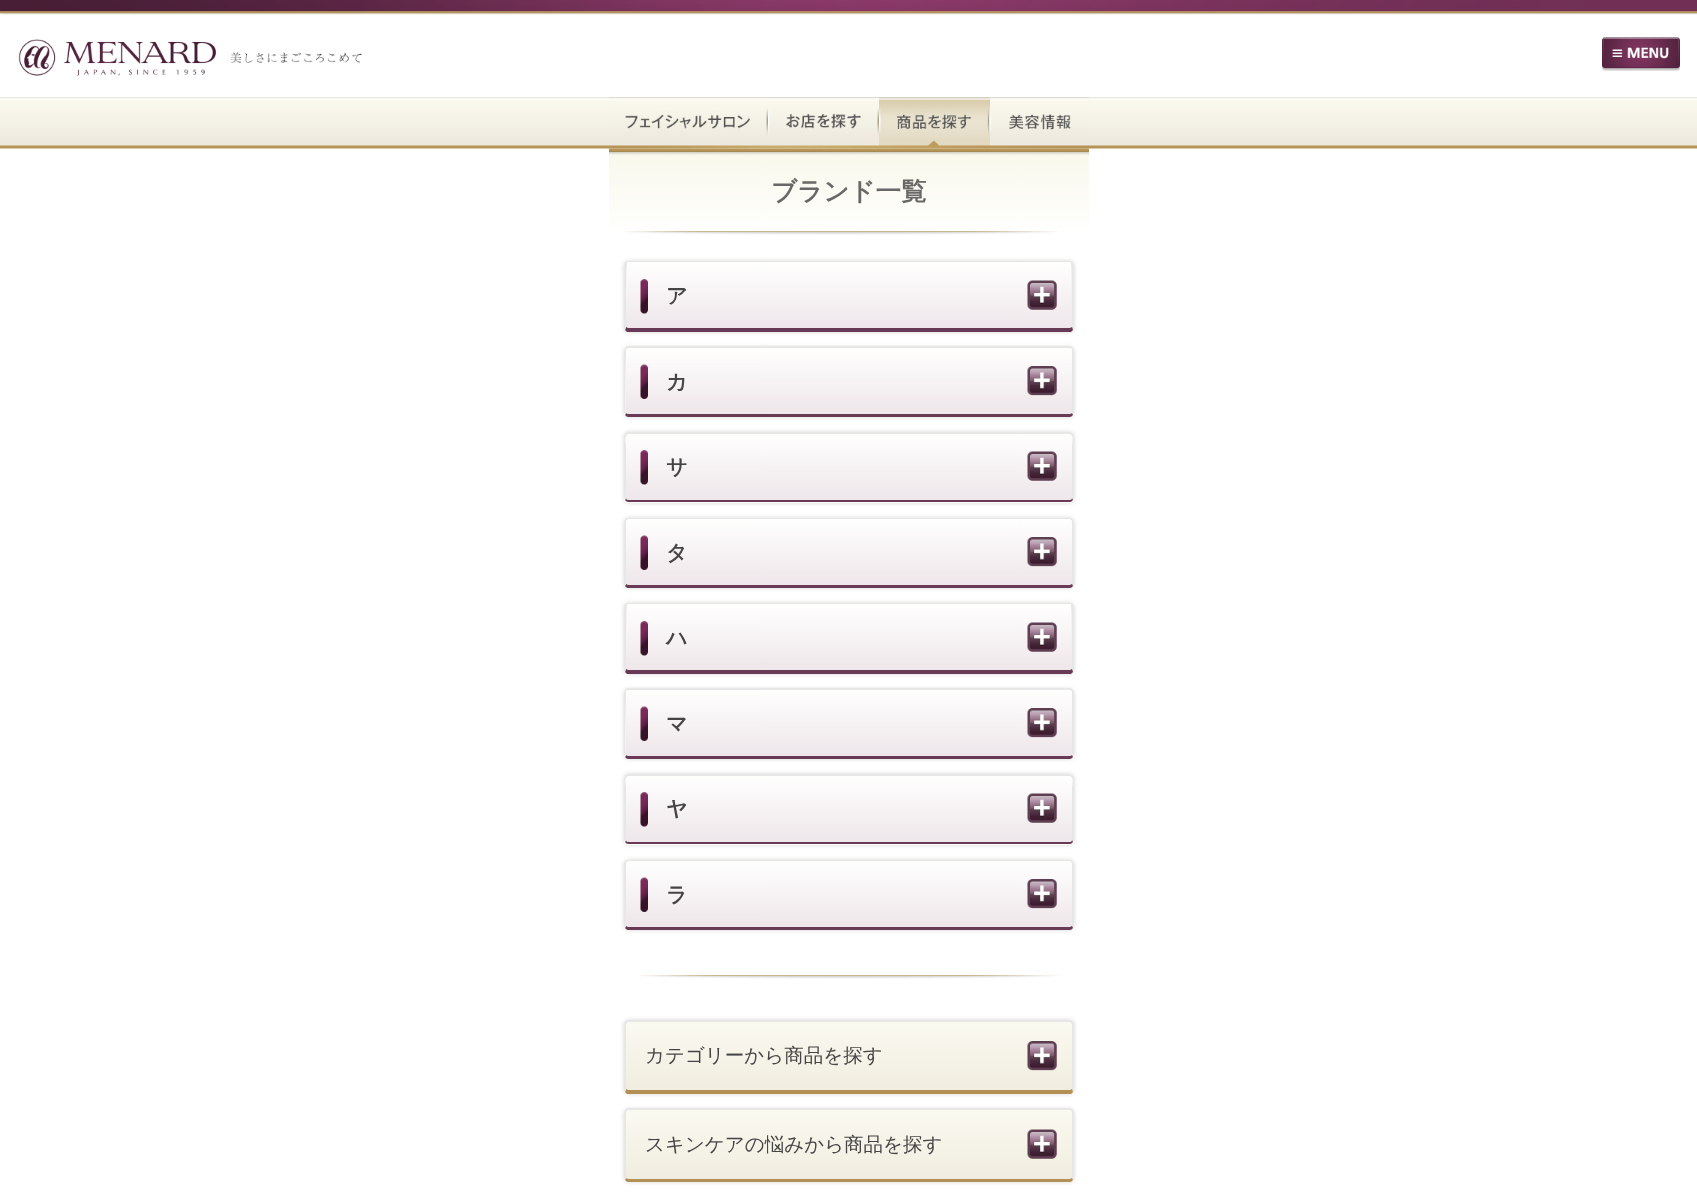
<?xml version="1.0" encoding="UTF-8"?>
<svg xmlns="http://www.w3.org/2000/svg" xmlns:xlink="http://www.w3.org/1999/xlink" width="1697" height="1196">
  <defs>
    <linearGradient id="g1" gradientUnits="userSpaceOnUse" x1="849" y1="151" x2="849" y2="239"><stop offset="0" stop-color="#f9f8eb" /><stop offset="1" stop-color="#ffffff" /></linearGradient>
    <linearGradient id="g2" gradientUnits="userSpaceOnUse" x1="849" y1="262" x2="849" y2="329"><stop offset="0" stop-color="#fffffe" /><stop offset="1" stop-color="#eee6ea" /></linearGradient>
    <clipPath id="clip1"><path d="M 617 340 h 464 v 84 h -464 z m 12 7 h 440 c 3 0 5 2 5 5 v 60 c 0 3 -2 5 -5 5 h -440 c -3 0 -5 -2 -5 -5 v -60 c 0 -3 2 -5 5 -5 z" clip-rule="evenodd" /></clipPath>
    <linearGradient id="g3" gradientUnits="userSpaceOnUse" x1="849" y1="348" x2="849" y2="414"><stop offset="0" stop-color="#fffffe" /><stop offset="1" stop-color="#eee6ea" /></linearGradient>
    <clipPath id="clip2"><path d="M 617 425 h 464 v 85 h -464 z m 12 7 h 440 c 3 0 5 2 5 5 v 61 c 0 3 -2 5 -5 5 h -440 c -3 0 -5 -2 -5 -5 v -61 c 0 -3 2 -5 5 -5 z" clip-rule="evenodd" /></clipPath>
    <linearGradient id="g4" gradientUnits="userSpaceOnUse" x1="849" y1="434" x2="849" y2="500"><stop offset="0" stop-color="#fffffe" /><stop offset="1" stop-color="#eee6ea" /></linearGradient>
    <linearGradient id="g5" gradientUnits="userSpaceOnUse" x1="849" y1="519" x2="849" y2="585"><stop offset="0" stop-color="#fffffe" /><stop offset="1" stop-color="#eee6ea" /></linearGradient>
    <linearGradient id="g6" gradientUnits="userSpaceOnUse" x1="849" y1="605" x2="849" y2="671"><stop offset="0" stop-color="#fffffe" /><stop offset="1" stop-color="#eee6ea" /></linearGradient>
    <clipPath id="clip3"><path d="M 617 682 h 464 v 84 h -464 z m 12 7 h 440 c 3 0 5 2 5 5 v 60 c 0 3 -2 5 -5 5 h -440 c -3 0 -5 -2 -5 -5 v -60 c 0 -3 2 -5 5 -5 z" clip-rule="evenodd" /></clipPath>
    <linearGradient id="g7" gradientUnits="userSpaceOnUse" x1="849" y1="690" x2="849" y2="756"><stop offset="0" stop-color="#fffffe" /><stop offset="1" stop-color="#eee6ea" /></linearGradient>
    <clipPath id="clip4"><path d="M 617 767 h 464 v 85 h -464 z m 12 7 h 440 c 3 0 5 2 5 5 v 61 c 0 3 -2 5 -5 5 h -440 c -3 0 -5 -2 -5 -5 v -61 c 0 -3 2 -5 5 -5 z" clip-rule="evenodd" /></clipPath>
    <linearGradient id="g8" gradientUnits="userSpaceOnUse" x1="849" y1="776" x2="849" y2="842"><stop offset="0" stop-color="#fffffe" /><stop offset="1" stop-color="#eee6ea" /></linearGradient>
    <linearGradient id="g9" gradientUnits="userSpaceOnUse" x1="849" y1="861" x2="849" y2="927"><stop offset="0" stop-color="#fffffe" /><stop offset="1" stop-color="#eee6ea" /></linearGradient>
    <linearGradient id="g10" gradientUnits="userSpaceOnUse" x1="849" y1="1022" x2="849" y2="1091"><stop offset="0" stop-color="#fbfaf1" /><stop offset="1" stop-color="#f0ecdf" /></linearGradient>
    <linearGradient id="g11" gradientUnits="userSpaceOnUse" x1="849" y1="1110" x2="849" y2="1179"><stop offset="0" stop-color="#fbfaf1" /><stop offset="1" stop-color="#f0ecdf" /></linearGradient>
  </defs>
  <rect width="100%" height="100%" fill="#ffffff" />
  <image x="0" y="0" width="1697" height="15" xlink:href="image1.png" />
  <image x="18" y="39" width="198" height="37" xlink:href="image2.png" />
  <image x="230" y="52" width="132" height="11" xlink:href="image3.png" />
  <image x="1602" y="37" width="78" height="34" xlink:href="image4.png" />
  <image x="0" y="97" width="1697" height="52" xlink:href="image5.png" />
  <image x="609" y="97" width="159" height="52" xlink:href="image6.png" />
  <image x="768" y="97" width="111" height="52" xlink:href="image7.png" />
  <image x="879" y="97" width="111" height="52" xlink:href="image8.png" />
  <image x="990" y="97" width="99" height="52" xlink:href="image9.png" />
  <rect x="609" y="149" width="480" height="3" fill="#b79558" />
  <rect x="609" y="152" width="480" height="76" fill="url(#g1)" />
  <image x="609" y="151" width="480" height="84" xlink:href="image10.png" />
  <rect x="624" y="261" width="450" height="71" rx="5" fill="#d5d5d5" filter="blur(2px)" />
  <path d="M 628 262 h 442 c 1 0 2 2 2 4 v 61 c 0 1 -1 1 -2 1 h -442 c -1 0 -2 0 -2 -1 v -61 c 0 -2 1 -4 2 -4 z" fill="url(#g2)" />
  <path d="M 628 261 l -3 1 l 2 2 c 0 -1 0 -2 1 -2 h 442 c 1 0 1 1 1 2 l 2 -2 l -3 -1 z" fill="#e7e7e7" />
  <path d="M 1074 327 v -61 c 0 -2 -1 -3 -1 -4 l -2 2 c 1 2 1 62 1 63 l 1 3 z" fill="#e7e7e7" />
  <path d="M 627 332 l -2 -2 l 1 -3 l 2 1 h 442 l 2 -1 l 1 3 l -2 2 z" fill="#693a56" />
  <path d="M 624 266 v 61 l 1 3 l 1 -3 c 0 -1 0 -61 1 -63 l -2 -2 c 0 1 -1 2 -1 4 z" fill="#e7e7e7" />
  <image x="1027" y="280" width="30" height="30" xlink:href="image11.png" />
  <image x="640" y="279" width="8" height="35" xlink:href="image12.png" />
  <g clip-path="url(#clip1)">
    <rect x="624" y="347" width="450" height="70" rx="5" fill="#d5d5d5" filter="blur(2px)" />
  </g>
  <path d="M 628 348 h 442 c 1 0 2 1 2 3 v 61 c 0 1 -1 2 -2 2 h -442 c -1 0 -2 -1 -2 -2 v -61 c 0 -2 1 -3 2 -3 z" fill="url(#g3)" />
  <path d="M 628 348 l -2 1 l -1 -1 l 2 -2 h 444 l 2 2 l -1 1 l -2 -1 z" fill="#e7e7e7" />
  <path d="M 1074 412 v -61 c 0 -1 0 -2 -1 -3 l -1 1 c 0 1 0 62 0 64 l 1 2 z" fill="#e7e7e7" />
  <path d="M 628 417 h 442 c 1 0 2 -1 3 -2 l -1 -2 c 0 0 -1 1 -2 1 h -442 c -1 0 -2 -1 -2 -1 l -1 2 c 1 1 2 2 3 2 z" fill="#693a56" />
  <path d="M 624 351 v 61 l 1 3 l 1 -2 c -1 -2 0 -63 0 -64 l -1 -1 z" fill="#e7e7e7" />
  <image x="1027" y="366" width="30" height="30" xlink:href="image13.png" />
  <image x="640" y="364" width="8" height="35" xlink:href="image14.png" />
  <g clip-path="url(#clip2)">
    <rect x="624" y="432" width="450" height="71" rx="5" fill="#d5d5d5" filter="blur(2px)" />
  </g>
  <path d="M 628 434 h 442 c 1 0 2 1 2 2 v 62 c 0 1 -1 2 -2 2 h -442 c -1 0 -2 -1 -2 -2 v -62 c 0 -1 1 -2 2 -2 z" fill="url(#g4)" />
  <path d="M 628 432 l -3 1 l 2 2 l 1 -1 h 442 l 1 1 l 2 -2 l -3 -1 z" fill="#e7e7e7" />
  <path d="M 1074 498 v -62 l -1 -3 l -2 2 c 3 2 1 7 1 11 v 52 l 1 2 z" fill="#e7e7e7" />
  <path d="M 1073 500 c -1 1 -2 2 -3 2 h -442 c -1 0 -2 -1 -3 -2 l 1 -2 c 0 1 1 2 2 2 h 442 c 1 0 2 -1 2 -2 z" fill="#693a56" />
  <path d="M 624 436 v 62 l 1 2 l 1 -2 v -52 c 0 -4 -2 -9 1 -11 l -2 -2 z" fill="#e7e7e7" />
  <image x="1027" y="451" width="30" height="30" xlink:href="image15.png" />
  <image x="640" y="450" width="8" height="35" xlink:href="image16.png" />
  <rect x="624" y="518" width="450" height="70" rx="5" fill="#d5d5d5" filter="blur(2px)" />
  <path d="M 628 519 h 442 c 1 0 2 1 2 3 v 62 c 0 0 -1 1 -2 1 h -442 c -1 0 -2 -1 -2 -1 v -62 c 0 -2 1 -3 2 -3 z" fill="url(#g5)" />
  <path d="M 628 518 l -2 1 v 1 l 2 -1 h 368 h 74 l 2 1 v -1 l -2 -1 z" fill="#e7e7e7" />
  <path d="M 1072 519 l 2 3 v 62 l -1 2 l -1 -2 v -62 v -2 z" fill="#e7e7e7" />
  <path d="M 628 588 h 442 c 1 0 2 -1 3 -2 l -1 -2 l -2 1 h -442 l -2 -1 l -1 2 c 1 1 2 2 3 2 z" fill="#693a56" />
  <path d="M 624 522 v 62 l 1 2 l 1 -2 v -62 v -2 v -1 c -1 1 -2 2 -2 3 z" fill="#e7e7e7" />
  <image x="1027" y="537" width="30" height="30" xlink:href="image17.png" />
  <image x="640" y="535" width="8" height="35" xlink:href="image14.png" />
  <rect x="624" y="603" width="450" height="71" rx="5" fill="#d5d5d5" filter="blur(2px)" />
  <path d="M 628 604 h 442 c 1 0 2 2 2 4 v 61 c 0 1 -1 1 -2 1 h -442 c -1 0 -2 0 -2 -1 v -61 c 0 -2 1 -4 2 -4 z" fill="url(#g6)" />
  <path d="M 628 603 l -3 1 l 2 2 c 0 -1 0 -2 1 -2 h 442 c 1 0 1 1 1 2 l 2 -2 l -3 -1 z" fill="#e7e7e7" />
  <path d="M 1074 669 v -61 c 0 -2 -1 -3 -1 -4 l -2 2 c 1 2 1 62 1 63 l 1 3 z" fill="#e7e7e7" />
  <path d="M 627 674 l -2 -2 l 1 -3 l 2 1 h 442 l 2 -1 l 1 3 l -2 2 z" fill="#693a56" />
  <path d="M 624 608 v 61 l 1 3 l 1 -3 c 0 -1 0 -61 1 -63 l -2 -2 c 0 1 -1 2 -1 4 z" fill="#e7e7e7" />
  <image x="1027" y="622" width="30" height="30" xlink:href="image18.png" />
  <image x="640" y="621" width="8" height="35" xlink:href="image16.png" />
  <g clip-path="url(#clip3)">
    <rect x="624" y="689" width="450" height="70" rx="5" fill="#d5d5d5" filter="blur(2px)" />
  </g>
  <path d="M 628 690 h 442 c 1 0 2 1 2 3 v 61 c 0 1 -1 2 -2 2 h -442 c -1 0 -2 -1 -2 -2 v -61 c 0 -2 1 -3 2 -3 z" fill="url(#g7)" />
  <path d="M 628 690 l -2 1 l -1 -1 l 2 -2 h 444 l 2 2 l -1 1 l -2 -1 z" fill="#e7e7e7" />
  <path d="M 1074 754 v -61 c 0 -1 0 -2 -1 -3 l -1 1 c 0 1 0 62 0 64 l 1 2 z" fill="#e7e7e7" />
  <path d="M 628 759 h 442 c 1 0 2 -1 3 -2 l -1 -2 c 0 0 -1 1 -2 1 h -442 c -1 0 -2 -1 -2 -1 l -1 2 c 1 1 2 2 3 2 z" fill="#693a56" />
  <path d="M 624 693 v 61 l 1 3 l 1 -2 c -1 -2 0 -63 0 -64 l -1 -1 z" fill="#e7e7e7" />
  <image x="1027" y="708" width="30" height="30" xlink:href="image19.png" />
  <image x="640" y="706" width="8" height="35" xlink:href="image14.png" />
  <g clip-path="url(#clip4)">
    <rect x="624" y="774" width="450" height="71" rx="5" fill="#d5d5d5" filter="blur(2px)" />
  </g>
  <path d="M 628 776 h 442 c 1 0 2 1 2 2 v 62 c 0 1 -1 2 -2 2 h -442 c -1 0 -2 -1 -2 -2 v -62 c 0 -1 1 -2 2 -2 z" fill="url(#g8)" />
  <path d="M 628 774 l -3 1 l 2 2 l 1 -1 h 442 l 1 1 l 2 -2 l -3 -1 z" fill="#e7e7e7" />
  <path d="M 1074 840 v -62 l -1 -3 l -2 2 c 3 2 1 7 1 11 v 52 l 1 2 z" fill="#e7e7e7" />
  <path d="M 1073 842 c -1 1 -2 2 -3 2 h -442 c -1 0 -2 -1 -3 -2 l 1 -2 c 0 1 1 2 2 2 h 442 c 1 0 2 -1 2 -2 z" fill="#693a56" />
  <path d="M 624 778 v 62 l 1 2 l 1 -2 v -52 c 0 -4 -2 -9 1 -11 l -2 -2 z" fill="#e7e7e7" />
  <image x="1027" y="793" width="30" height="30" xlink:href="image20.png" />
  <image x="640" y="792" width="8" height="35" xlink:href="image16.png" />
  <rect x="624" y="860" width="450" height="70" rx="5" fill="#d5d5d5" filter="blur(2px)" />
  <path d="M 628 861 h 442 c 1 0 2 1 2 3 v 62 c 0 0 -1 1 -2 1 h -442 c -1 0 -2 -1 -2 -1 v -62 c 0 -2 1 -3 2 -3 z" fill="url(#g9)" />
  <path d="M 628 860 l -2 1 v 1 l 2 -1 h 368 h 74 l 2 1 v -1 l -2 -1 z" fill="#e7e7e7" />
  <path d="M 1072 861 l 2 3 v 62 l -1 2 l -1 -2 v -62 v -2 z" fill="#e7e7e7" />
  <path d="M 628 930 h 442 c 1 0 2 -1 3 -2 l -1 -2 l -2 1 h -442 l -2 -1 l -1 2 c 1 1 2 2 3 2 z" fill="#693a56" />
  <path d="M 624 864 v 62 l 1 2 l 1 -2 v -62 v -2 v -1 c -1 1 -2 2 -2 3 z" fill="#e7e7e7" />
  <image x="1027" y="879" width="30" height="30" xlink:href="image13.png" />
  <image x="640" y="877" width="8" height="35" xlink:href="image14.png" />
  <image x="640" y="975" width="419" height="4" xlink:href="image21.png" />
  <rect x="624" y="1020" width="450" height="74" rx="5" fill="#d5d5d5" filter="blur(2px)" />
  <path d="M 628 1022 h 442 c 1 0 2 1 2 2 v 65 c 0 1 -1 1 -2 1 h -442 c -1 0 -2 0 -2 -1 v -65 c 0 -1 1 -2 2 -2 z" fill="url(#g10)" />
  <path d="M 628 1020 l -3 1 l 2 2 l 1 -1 h 442 l 1 1 l 2 -2 l -3 -1 z" fill="#e7e7e7" />
  <path d="M 1074 1089 v -65 l -1 -3 l -2 2 l 1 1 v 65 l 1 3 z" fill="#e7e7e7" />
  <path d="M 627 1094 l -2 -2 l 1 -3 l 2 1 h 442 l 2 -1 l 1 3 l -2 2 z" fill="#b39054" />
  <path d="M 624 1024 v 65 l 1 3 l 1 -3 v -65 l 1 -1 l -2 -2 z" fill="#e7e7e7" />
  <image x="1027" y="1041" width="30" height="30" xlink:href="image22.png" />
  <rect x="624" y="1109" width="450" height="73" rx="5" fill="#d5d5d5" filter="blur(2px)" />
  <path d="M 628 1110 h 442 c 1 0 2 1 2 3 v 65 c 0 0 -1 1 -2 1 h -442 c -1 0 -2 -1 -2 -1 v -65 c 0 -2 1 -3 2 -3 z" fill="url(#g11)" />
  <path d="M 628 1110 l -2 1 l -1 -1 l 2 -2 h 444 l 2 2 l -1 1 l -2 -1 z" fill="#e7e7e7" />
  <path d="M 1074 1178 v -65 c 0 -1 0 -2 -1 -3 l -1 1 v 2 v 65 l 1 2 z" fill="#e7e7e7" />
  <path d="M 628 1182 h 442 c 1 0 2 -1 3 -2 l -1 -2 l -2 1 h -442 l -2 -1 l -1 2 c 1 1 2 2 3 2 z" fill="#b39054" />
  <path d="M 624 1113 v 65 l 1 2 l 1 -2 v -65 v -2 l -1 -1 z" fill="#e7e7e7" />
  <image x="1027" y="1129" width="30" height="30" xlink:href="image23.png" />
  <text x="771" y="200" style="font-family: WenQuanYi Zen Hei; font-size: 25.5px; font-weight: bold; fill: #696866">ブランド一覧</text>
  <text x="666" y="303" style="font-family: WenQuanYi Zen Hei; font-size: 21px; font-weight: bold; fill: #454545">ア</text>
  <text x="666" y="389" style="font-family: WenQuanYi Zen Hei; font-size: 21px; font-weight: bold; fill: #454545">カ</text>
  <text x="666" y="474" style="font-family: WenQuanYi Zen Hei; font-size: 21px; font-weight: bold; fill: #454545">サ</text>
  <text x="666" y="560" style="font-family: WenQuanYi Zen Hei; font-size: 21px; font-weight: bold; fill: #454545">タ</text>
  <text x="666" y="645" style="font-family: WenQuanYi Zen Hei; font-size: 21px; font-weight: bold; fill: #454545">ハ</text>
  <text x="666" y="731" style="font-family: WenQuanYi Zen Hei; font-size: 21px; font-weight: bold; fill: #454545">マ</text>
  <text x="666" y="816" style="font-family: WenQuanYi Zen Hei; font-size: 21px; font-weight: bold; fill: #454545">ヤ</text>
  <text x="666" y="902" style="font-family: WenQuanYi Zen Hei; font-size: 21px; font-weight: bold; fill: #454545">ラ</text>
  <text x="645" y="1062" style="font-family: WenQuanYi Zen Hei; font-size: 19.5px; font-weight: 500; fill: #454545">カテゴリーから商品を探す</text>
  <text x="645" y="1151" style="font-family: WenQuanYi Zen Hei; font-size: 19.5px; font-weight: 500; fill: #454545">スキンケアの悩みから商品を探す</text>
</svg>
